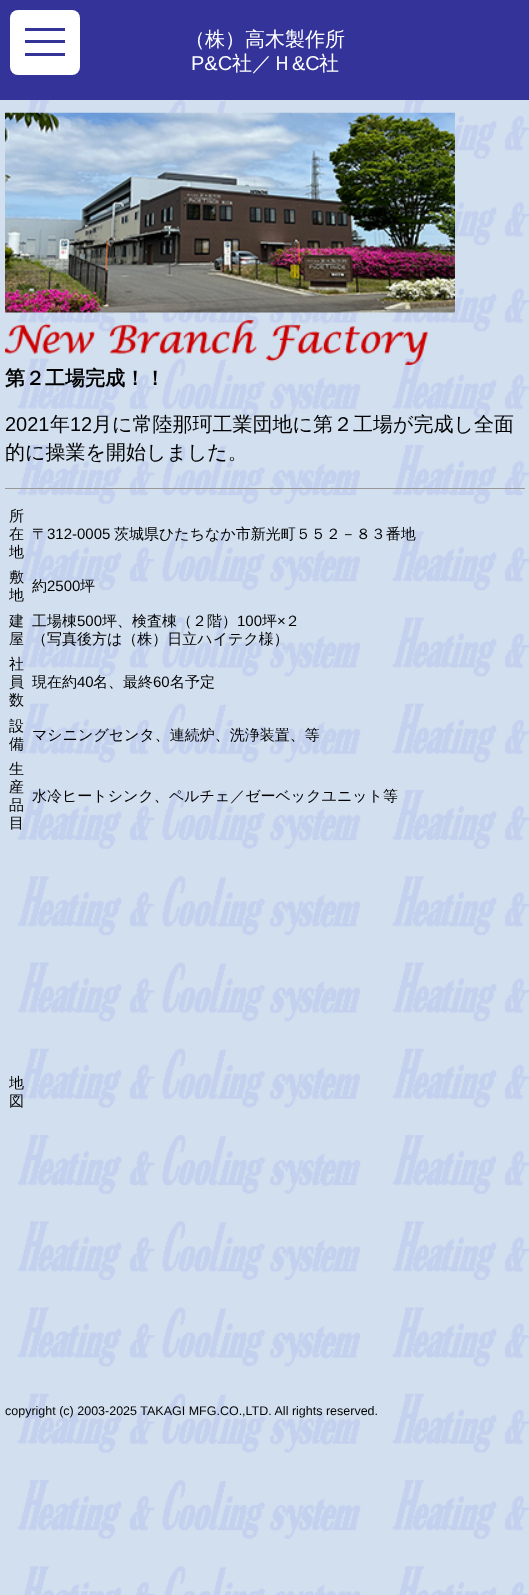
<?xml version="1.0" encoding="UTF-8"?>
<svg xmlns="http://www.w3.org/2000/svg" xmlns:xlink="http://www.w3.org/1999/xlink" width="529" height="1595">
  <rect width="100%" height="100%" fill="#ffffff" />
  <image x="0" y="100" width="529" height="1495" xlink:href="image1.png" />
  <rect width="529" height="100" fill="#333399" />
  <rect x="10" y="10" width="70" height="65" rx="8" fill="#ffffff" />
  <rect x="25" y="40" width="40" height="3" fill="#333399" />
  <rect x="25" y="28" width="40" height="3" fill="#333399" />
  <rect x="25" y="53" width="40" height="3" fill="#333399" />
  <rect x="5" y="488" width="520" height="1" fill="#999999" />
  <image x="5" y="112" width="450" height="201" xlink:href="image2.png" />
  <image x="5" y="320" width="423" height="45" xlink:href="image3.png" />
  <text x="185" y="46" style="font-family: WenQuanYi Zen Hei; font-size: 20px; font-weight: 500; fill: #ffffff">（株）高木製作所</text>
  <text x="191" y="70" style="font-family: Liberation Sans; font-size: 20px; fill: #ffffff">P&amp;C</text>
  <text x="232" y="70" style="font-family: WenQuanYi Zen Hei; font-size: 20px; font-weight: 500; fill: #ffffff">社／Ｈ</text>
  <text x="292" y="70" style="font-family: Liberation Sans; font-size: 20px; fill: #ffffff">&amp;C</text>
  <text x="319" y="70" style="font-family: WenQuanYi Zen Hei; font-size: 20px; font-weight: 500; fill: #ffffff">社</text>
  <text x="5" y="385" style="font-family: WenQuanYi Zen Hei; font-size: 20px; font-weight: bold; fill: #000000">第２工場完成！！</text>
  <text x="5" y="431" style="font-family: Liberation Sans; font-size: 20px; fill: #000000">2021</text>
  <text x="50" y="431" style="font-family: WenQuanYi Zen Hei; font-size: 20px; font-weight: 500; fill: #000000">年</text>
  <text x="70" y="431" style="font-family: Liberation Sans; font-size: 20px; fill: #000000">12</text>
  <text x="92" y="431" style="font-family: WenQuanYi Zen Hei; font-size: 20px; font-weight: 500; fill: #000000">月に常陸那珂工業団地に第２工場が完成し全面</text>
  <text x="5" y="459" style="font-family: WenQuanYi Zen Hei; font-size: 20px; font-weight: 500; fill: #000000">的に操業を開始しました。</text>
  <text x="9" y="521" style="font-family: WenQuanYi Zen Hei; font-size: 15px; font-weight: 500; fill: #000000">所</text>
  <text x="9" y="539" style="font-family: WenQuanYi Zen Hei; font-size: 15px; font-weight: 500; fill: #000000">在</text>
  <text x="9" y="557" style="font-family: WenQuanYi Zen Hei; font-size: 15px; font-weight: 500; fill: #000000">地</text>
  <text x="32" y="539" style="font-family: WenQuanYi Zen Hei; font-size: 15px; font-weight: 500; fill: #000000">〒</text>
  <text x="47" y="539" style="font-family: Liberation Sans; font-size: 15px; fill: #000000">312-0005</text>
  <text x="114" y="539" style="font-family: WenQuanYi Zen Hei; font-size: 15px; font-weight: 500; fill: #000000">茨城県ひたちなか市新光町５５２－８３番地</text>
  <text x="9" y="582" style="font-family: WenQuanYi Zen Hei; font-size: 15px; font-weight: 500; fill: #000000">敷</text>
  <text x="9" y="600" style="font-family: WenQuanYi Zen Hei; font-size: 15px; font-weight: 500; fill: #000000">地</text>
  <text x="32" y="591" style="font-family: WenQuanYi Zen Hei; font-size: 15px; font-weight: 500; fill: #000000">約</text>
  <text x="47" y="591" style="font-family: Liberation Sans; font-size: 15px; fill: #000000">2500</text>
  <text x="80" y="591" style="font-family: WenQuanYi Zen Hei; font-size: 15px; font-weight: 500; fill: #000000">坪</text>
  <text x="9" y="626" style="font-family: WenQuanYi Zen Hei; font-size: 15px; font-weight: 500; fill: #000000">建</text>
  <text x="9" y="644" style="font-family: WenQuanYi Zen Hei; font-size: 15px; font-weight: 500; fill: #000000">屋</text>
  <text x="32" y="626" style="font-family: WenQuanYi Zen Hei; font-size: 15px; font-weight: 500; fill: #000000">工場棟</text>
  <text x="77" y="626" style="font-family: Liberation Sans; font-size: 15px; fill: #000000">500</text>
  <text x="102" y="626" style="font-family: WenQuanYi Zen Hei; font-size: 15px; font-weight: 500; fill: #000000">坪、検査棟（２階）</text>
  <text x="237" y="626" style="font-family: Liberation Sans; font-size: 15px; fill: #000000">100</text>
  <text x="262" y="626" style="font-family: WenQuanYi Zen Hei; font-size: 15px; font-weight: 500; fill: #000000">坪</text>
  <text x="277" y="626" style="font-family: Liberation Sans; font-size: 15px; fill: #000000">×</text>
  <text x="285" y="626" style="font-family: WenQuanYi Zen Hei; font-size: 15px; font-weight: 500; fill: #000000">２</text>
  <text x="32" y="644" style="font-family: WenQuanYi Zen Hei; font-size: 15px; font-weight: 500; fill: #000000">（写真後方は（株）日立ハイテク様）</text>
  <text x="9" y="669" style="font-family: WenQuanYi Zen Hei; font-size: 15px; font-weight: 500; fill: #000000">社</text>
  <text x="9" y="687" style="font-family: WenQuanYi Zen Hei; font-size: 15px; font-weight: 500; fill: #000000">員</text>
  <text x="9" y="705" style="font-family: WenQuanYi Zen Hei; font-size: 15px; font-weight: 500; fill: #000000">数</text>
  <text x="32" y="687" style="font-family: WenQuanYi Zen Hei; font-size: 15px; font-weight: 500; fill: #000000">現在約</text>
  <text x="77" y="687" style="font-family: Liberation Sans; font-size: 15px; fill: #000000">40</text>
  <text x="93" y="687" style="font-family: WenQuanYi Zen Hei; font-size: 15px; font-weight: 500; fill: #000000">名、最終</text>
  <text x="153" y="687" style="font-family: Liberation Sans; font-size: 15px; fill: #000000">60</text>
  <text x="170" y="687" style="font-family: WenQuanYi Zen Hei; font-size: 15px; font-weight: 500; fill: #000000">名予定</text>
  <text x="9" y="731" style="font-family: WenQuanYi Zen Hei; font-size: 15px; font-weight: 500; fill: #000000">設</text>
  <text x="9" y="749" style="font-family: WenQuanYi Zen Hei; font-size: 15px; font-weight: 500; fill: #000000">備</text>
  <text x="32" y="740" style="font-family: WenQuanYi Zen Hei; font-size: 15px; font-weight: 500; fill: #000000">マシニングセンタ、連続炉、洗浄装置、等</text>
  <text x="9" y="774" style="font-family: WenQuanYi Zen Hei; font-size: 15px; font-weight: 500; fill: #000000">生</text>
  <text x="9" y="792" style="font-family: WenQuanYi Zen Hei; font-size: 15px; font-weight: 500; fill: #000000">産</text>
  <text x="9" y="810" style="font-family: WenQuanYi Zen Hei; font-size: 15px; font-weight: 500; fill: #000000">品</text>
  <text x="9" y="828" style="font-family: WenQuanYi Zen Hei; font-size: 15px; font-weight: 500; fill: #000000">目</text>
  <text x="32" y="801" style="font-family: WenQuanYi Zen Hei; font-size: 15px; font-weight: 500; fill: #000000">水冷ヒートシンク、ペルチェ／ゼーベックユニット等</text>
  <text x="9" y="1088" style="font-family: WenQuanYi Zen Hei; font-size: 15px; font-weight: 500; fill: #000000">地</text>
  <text x="9" y="1106" style="font-family: WenQuanYi Zen Hei; font-size: 15px; font-weight: 500; fill: #000000">図</text>
  <text x="5" y="1415" style="font-family: Liberation Sans; font-size: 12.5px; fill: #000000">copyright (c) 2003-2025 TAKAGI MFG.CO.,LTD. All rights reserved.</text>
</svg>
